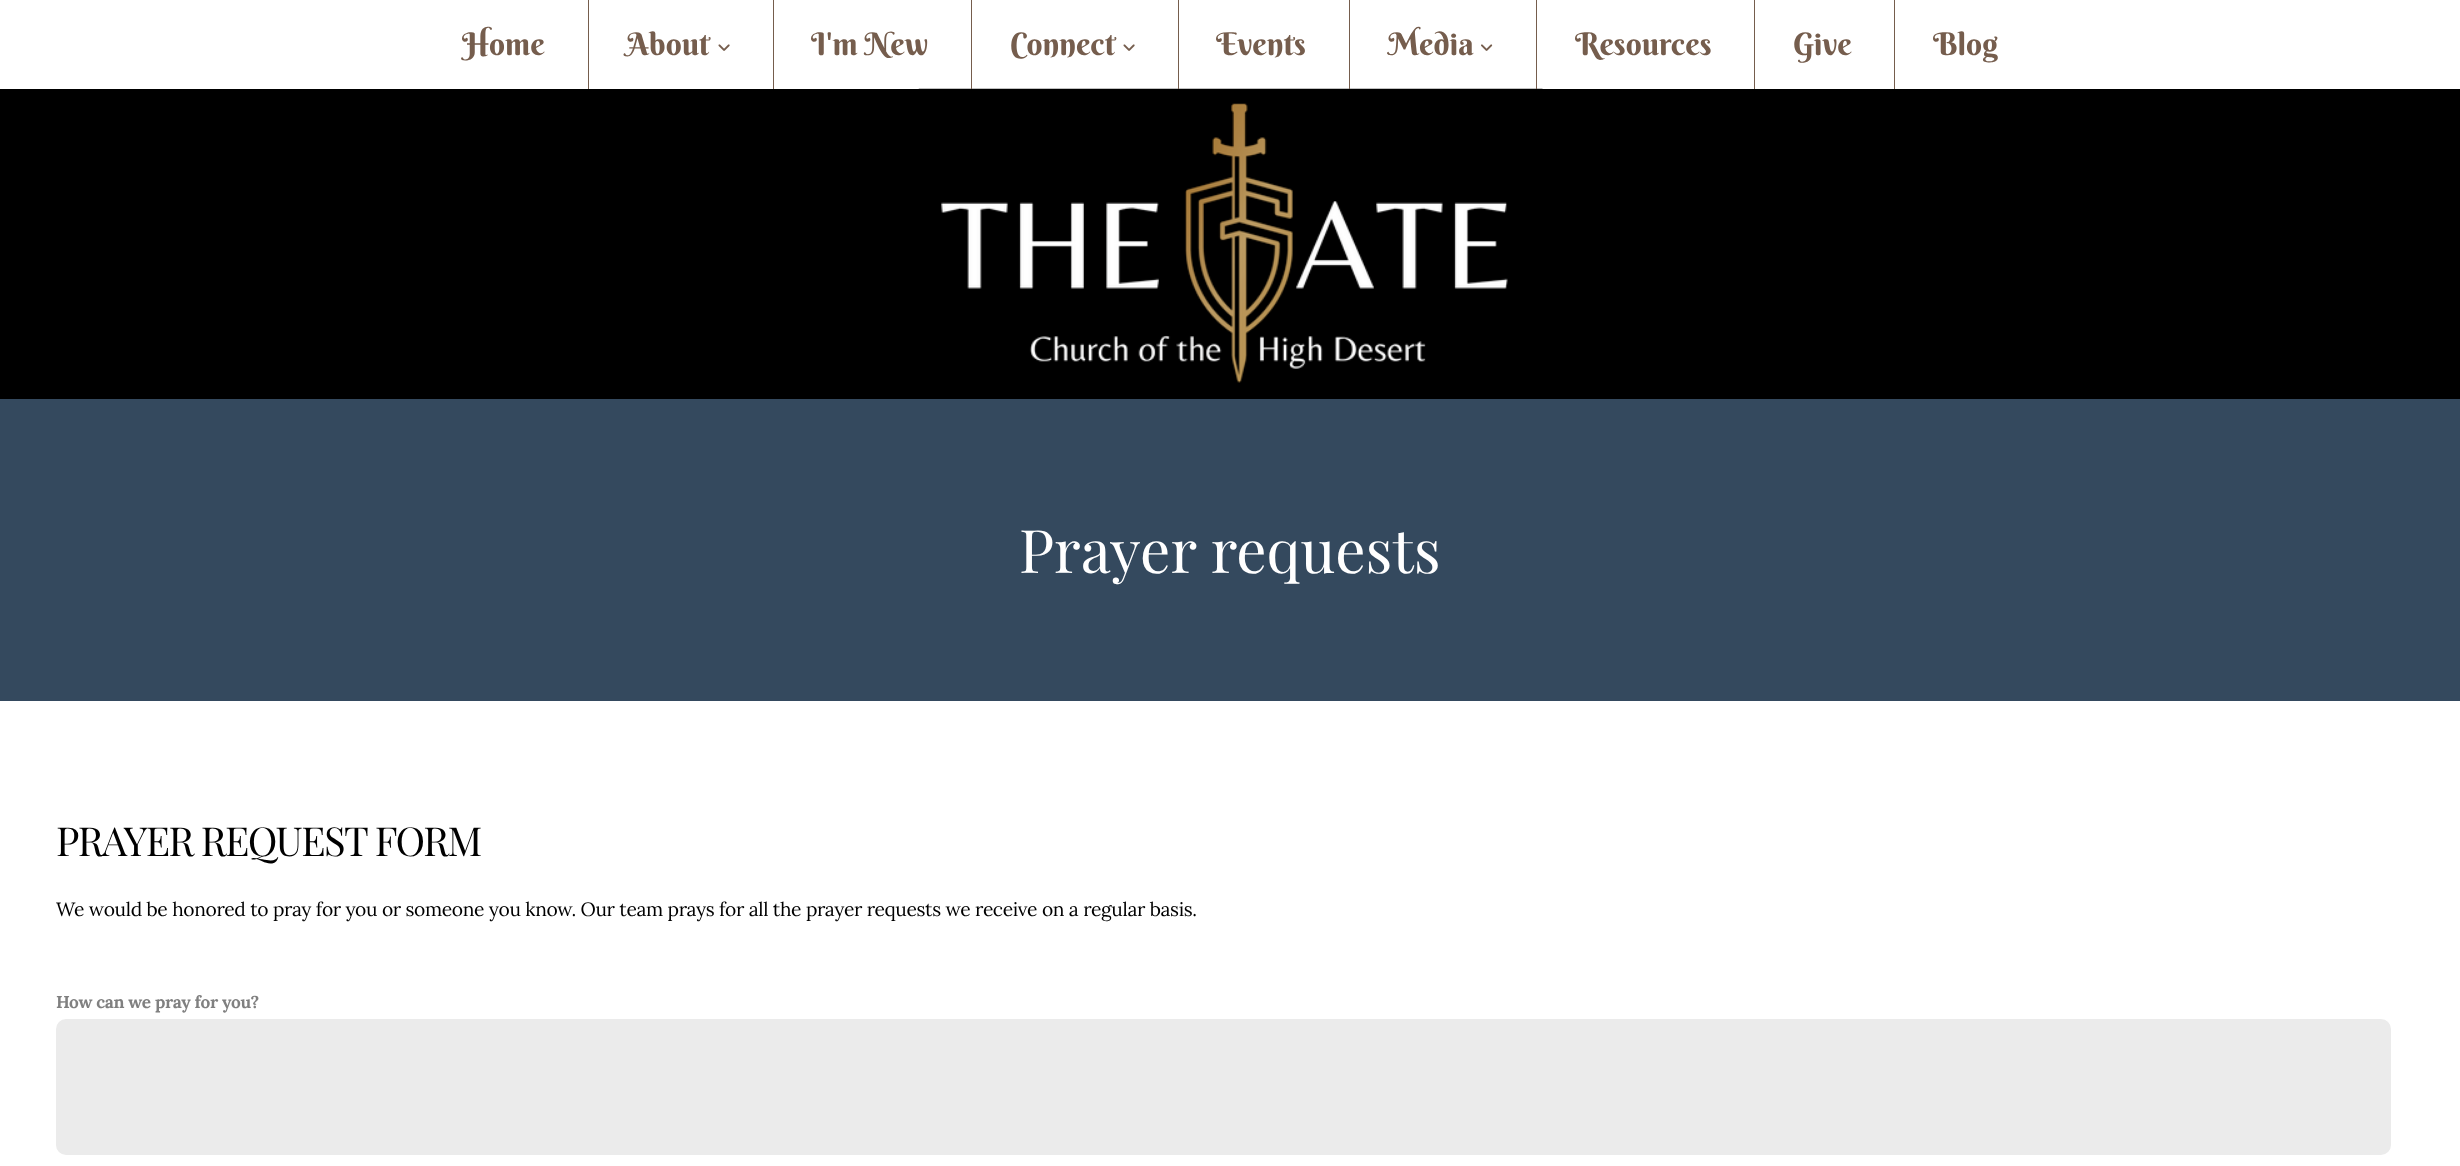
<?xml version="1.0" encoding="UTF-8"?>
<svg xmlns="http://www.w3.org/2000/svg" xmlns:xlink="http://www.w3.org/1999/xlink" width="2460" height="1166">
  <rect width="100%" height="100%" fill="#000000" />
  <rect width="2460" height="89" fill="#ffffff" />
  <rect x="588" width="1" height="89" fill="#755d4d" />
  <image x="718" y="44" width="12" height="7" xlink:href="image1.png" />
  <rect x="773" width="1" height="89" fill="#755d4d" />
  <image x="918" y="88" width="625" height="295" xlink:href="image3.png" />
  <rect x="971" width="1" height="89" fill="#755d4d" />
  <image x="1123" y="44" width="12" height="7" xlink:href="image1.png" />
  <rect x="1178" width="1" height="89" fill="#755d4d" />
  <rect x="1349" width="1" height="89" fill="#755d4d" />
  <image x="1481" y="44" width="12" height="7" xlink:href="image2.png" />
  <rect x="1536" width="1" height="89" fill="#755d4d" />
  <rect x="1754" width="1" height="89" fill="#755d4d" />
  <rect x="1894" width="1" height="89" fill="#755d4d" />
  <rect y="399" width="2460" height="302" fill="#34495e" />
  <rect y="701" width="2460" height="465" fill="#ffffff" />
  <rect x="56" y="1019" width="2335" height="136" rx="10" fill="#ebebeb" />
  <text x="462" y="55" style="font-family: Berkshire Swash; font-size: 31.25px; fill: #755d4d">Home</text>
  <text x="626" y="55" style="font-family: Berkshire Swash; font-size: 31.25px; fill: #755d4d">About</text>
  <text x="811" y="55" style="font-family: Berkshire Swash; font-size: 31.25px; fill: #755d4d">I'm New</text>
  <text x="1010" y="55" style="font-family: Berkshire Swash; font-size: 31.25px; fill: #755d4d">Connect</text>
  <text x="1216" y="55" style="font-family: Berkshire Swash; font-size: 31.25px; fill: #755d4d">Events</text>
  <text x="1388" y="55" style="font-family: Berkshire Swash; font-size: 31.25px; fill: #755d4d">Media</text>
  <text x="1575" y="55" style="font-family: Berkshire Swash; font-size: 31.25px; fill: #755d4d">Resources</text>
  <text x="1793" y="55" style="font-family: Berkshire Swash; font-size: 31.25px; fill: #755d4d">Give</text>
  <text x="1933" y="55" style="font-family: Berkshire Swash; font-size: 31.25px; fill: #755d4d">Blog</text>
  <text x="1019" y="573" style="font-family: Playfair Display; font-size: 60px; fill: #ffffff">Prayer requests</text>
  <text x="56" y="856" style="font-family: Playfair Display; font-size: 40px; letter-spacing: -1.6px; fill: #000000">PRAYER REQUEST FORM</text>
  <text x="56" y="916" style="font-family: Lora; font-size: 19.25px; letter-spacing: -0.35px; fill: #000000">We would be honored to pray for you or someone you know. Our team prays for all the prayer requests we receive on a regular basis.</text>
  <text x="56" y="1008" style="font-family: Lora; font-size: 17.25px; font-weight: bold; letter-spacing: -0.35px; fill: #808080">How can we pray for you?</text>
</svg>
